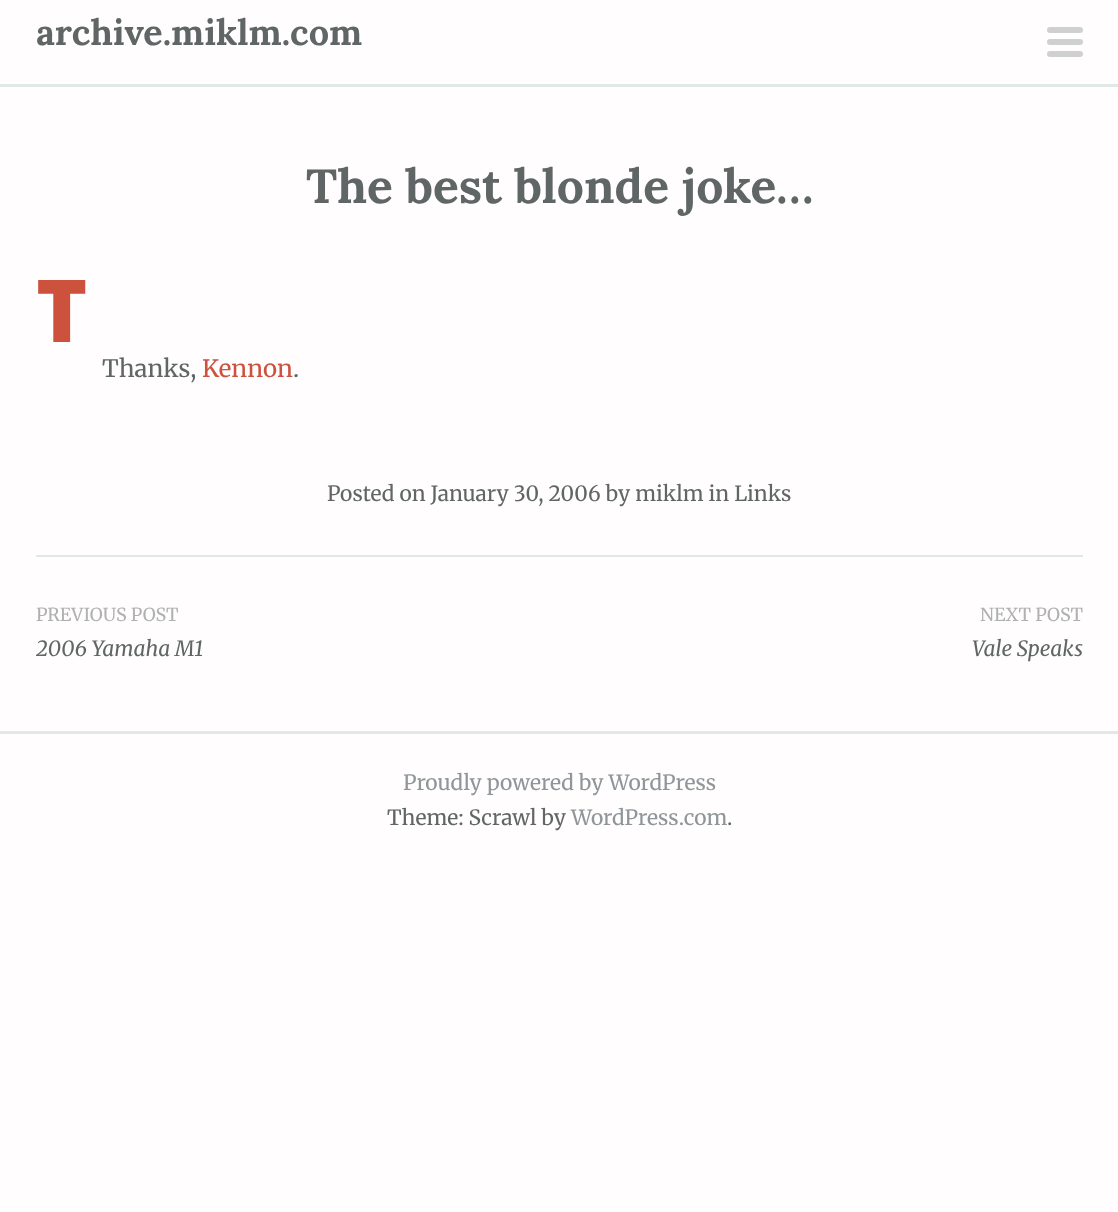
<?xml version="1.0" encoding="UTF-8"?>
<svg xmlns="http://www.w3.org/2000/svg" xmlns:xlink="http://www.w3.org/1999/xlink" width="1118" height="1212">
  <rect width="100%" height="100%" fill="#fffdfd" />
  <rect y="84" width="1118" height="3" fill="#e2e7e8" />
  <rect x="36" y="555" width="1047" height="2" fill="#e2e7e8" />
  <rect y="731" width="1118" height="3" fill="#e2e7e8" />
  <rect x="1047" y="39" width="36" height="6" rx="3" fill="#cfd0d0" />
  <rect x="1047" y="27" width="36" height="6" rx="3" fill="#cfd0d0" />
  <rect x="1047" y="51" width="36" height="6" rx="3" fill="#cfd0d0" />
  <text x="36" y="45" style="font-family: Lora; font-size: 36px; font-weight: bold; fill: #606666">archive.miklm.com</text>
  <text x="306" y="203" style="font-family: Lora; font-size: 48px; font-weight: bold; fill: #606666">The best blonde joke…</text>
  <text x="36" y="342" style="font-family: Noto Sans; font-size: 87px; font-weight: 900; fill: #cc523e">T</text>
  <text x="102" y="377" style="font-family: Merriweather; font-size: 24px; fill: #606666">Thanks,</text>
  <text x="202" y="377" style="font-family: Merriweather; font-size: 24px; fill: #cc523e">Kennon</text>
  <text x="293" y="377" style="font-family: Merriweather; font-size: 24px; fill: #606666">.</text>
  <text x="327" y="501" style="font-family: Merriweather; font-size: 21px; fill: #606666">Posted on January 30, 2006 by miklm in Links</text>
  <text x="36" y="621" style="font-family: Merriweather; font-size: 18px; fill: #b0b2b2">PREVIOUS POST</text>
  <text x="36" y="656" style="font-family: Merriweather; font-size: 21px; font-style: italic; fill: #606666">2006 Yamaha M1</text>
  <text x="980" y="621" style="font-family: Merriweather; font-size: 18px; fill: #b0b2b2">NEXT POST</text>
  <text x="972" y="656" style="font-family: Merriweather; font-size: 21px; font-style: italic; fill: #606666">Vale Speaks</text>
  <text x="403" y="790" style="font-family: Merriweather; font-size: 21px; fill: #8f9699">Proudly powered by WordPress</text>
  <text x="387" y="825" style="font-family: Merriweather; font-size: 21px; fill: #606666">Theme: Scrawl by</text>
  <text x="571" y="825" style="font-family: Merriweather; font-size: 21px; fill: #8f9699">WordPress.com</text>
  <text x="727" y="825" style="font-family: Merriweather; font-size: 21px; fill: #606666">.</text>
</svg>
